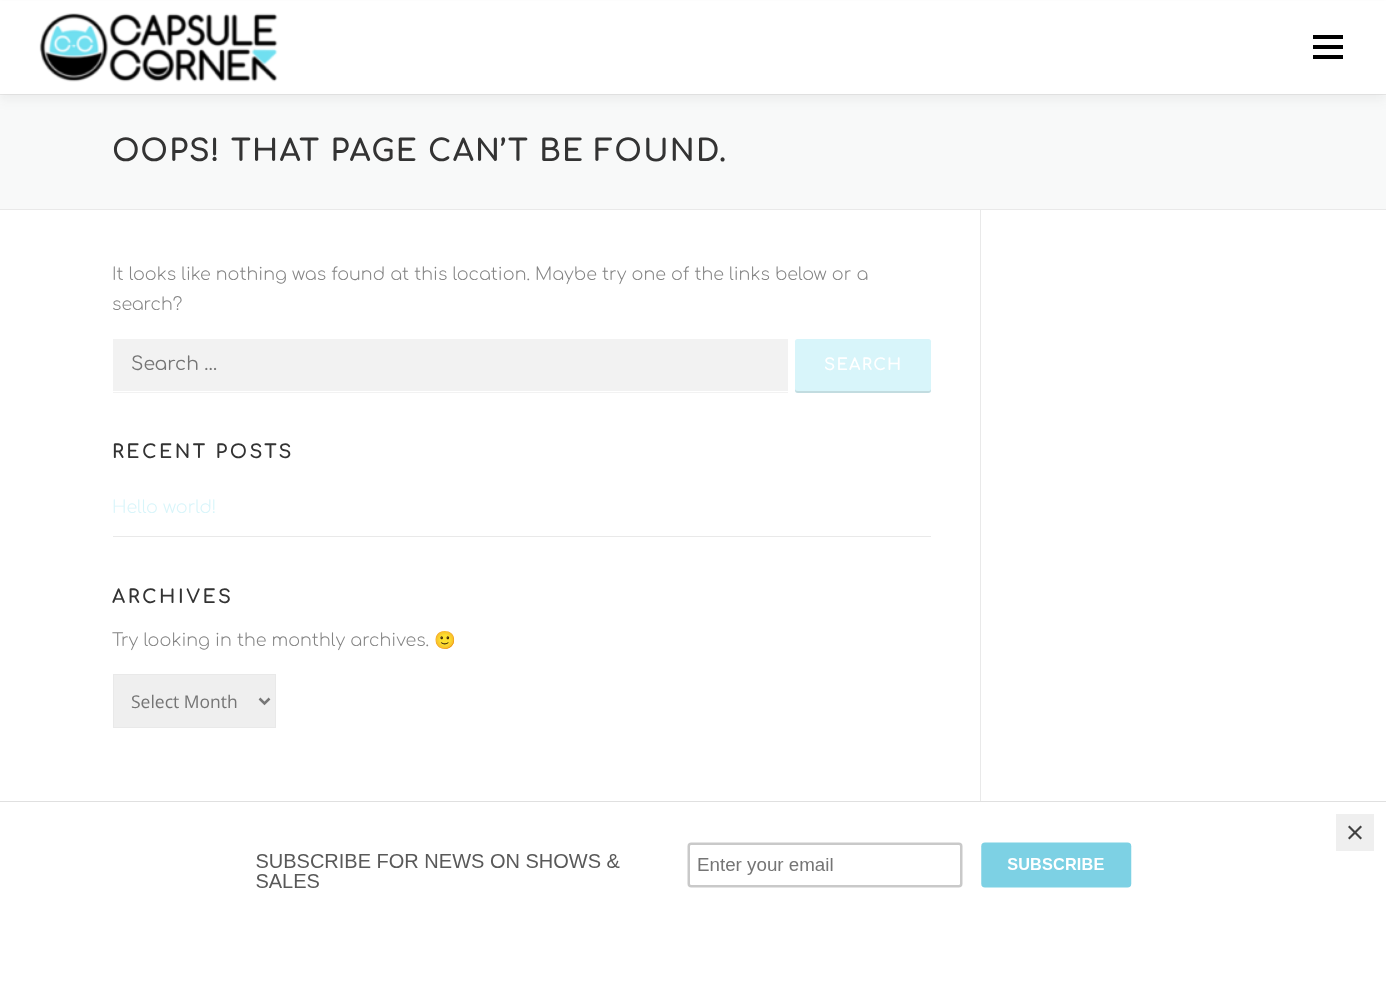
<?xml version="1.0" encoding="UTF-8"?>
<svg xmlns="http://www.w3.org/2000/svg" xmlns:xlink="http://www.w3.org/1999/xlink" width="1386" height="990">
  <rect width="100%" height="100%" fill="#ffffff" />
  <rect y="95" width="1386" height="114" fill="#f8f9f9" />
  <rect y="94" width="1386" height="1" fill="#e9e9e9" />
  <rect y="6" width="1386" height="94" fill="#323232" fill-opacity="0.06" filter="blur(6px)" />
  <rect y="1" width="1386" height="93" fill="#ffffff" />
  <image x="39" y="13" width="239" height="69" xlink:href="image1.png" />
  <rect x="1313" y="45" width="30" height="4" fill="#000000" />
  <rect x="1313" y="35" width="30" height="4" fill="#000000" />
  <rect x="1313" y="55" width="30" height="4" fill="#000000" />
  <rect y="209" width="1386" height="1" fill="#e9e9e9" />
  <rect x="980" y="210" width="1" height="591" fill="#e9e9e9" />
  <rect x="113" y="339" width="675" height="54" fill="#f2f2f2" />
  <rect x="113" y="391" width="675" height="1" fill="#ffffff" />
  <rect x="795" y="339" width="136" height="54" rx="2.5" fill="#d8f5fa" />
  <path d="M 795 389 v 1 c 0 2 1 3 3 3 h 130 c 2 0 3 -1 3 -3 v -1 c 0 1 -1 2 -2 2 h -131 c -2 0 -3 -1 -3 -2 z" fill="#000000" fill-opacity="0.1" />
  <rect x="113" y="536" width="818" height="1" fill="#e9e9e9" />
  <rect x="113.5" y="674.5" width="162" height="53" fill="#efefef" stroke="#e9e9e9" />
  <path d="M 259.5 698.5 l 5 5 l 5 -5" fill="none" stroke="#777777" stroke-width="2.5" />
  <rect y="801" width="1386" height="1" fill="#e0e0e0" />
  <image x="256" y="842" width="876" height="46" xlink:href="image2.png" />
  <rect x="1336" y="814" width="38" height="37" fill="#efefef" />
  <path d="M 1360.5 825.5 l 1.5 1.5 l -12.5 12.5 l -1.5 -1.5 z" fill="#414141" />
  <path d="M 1348 827 l 1.5 -1.5 l 12.5 12.5 l -1.5 1.5 z" fill="#414141" />
  <text x="112" y="161" style="font-family: Comfortaa; font-size: 30px; font-weight: bold; letter-spacing: 1.25px; fill: #333333">OOPS! THAT PAGE CAN’T BE FOUND.</text>
  <text x="112" y="280" style="font-family: Comfortaa; font-size: 17.5px; font-weight: 300; fill: #848484">It looks like nothing was found at this location. Maybe try one of the links below or a</text>
  <text x="112" y="310" style="font-family: Comfortaa; font-size: 17.5px; font-weight: 300; fill: #848484">search?</text>
  <text x="131" y="370" style="font-family: Comfortaa; font-size: 18.75px; fill: #757575">Search …</text>
  <text x="824" y="370" style="font-family: Comfortaa; font-size: 16.25px; font-weight: bold; letter-spacing: 1.25px; fill: #ffffff">SEARCH</text>
  <text x="112" y="458" style="font-family: Comfortaa; font-size: 18.75px; font-weight: bold; letter-spacing: 2.5px; fill: #333333">RECENT POSTS</text>
  <text x="112" y="513" style="font-family: Comfortaa; font-size: 17.5px; font-weight: 300; fill: #d8f5fa">Hello world!</text>
  <text x="112" y="603" style="font-family: Comfortaa; font-size: 18.75px; font-weight: bold; letter-spacing: 2.5px; fill: #333333">ARCHIVES</text>
  <text x="112" y="646" style="font-family: Comfortaa; font-size: 17.5px; font-weight: 300; fill: #848484">Try looking in the monthly archives.</text>
  <text x="434" y="646" style="font-family: Noto Color Emoji; font-size: 17.5px; fill: #848484">🙂</text>
  <text x="131" y="708" style="font-family: Open Sans; font-size: 17.5px; fill: #757575">Select Month</text>
</svg>
